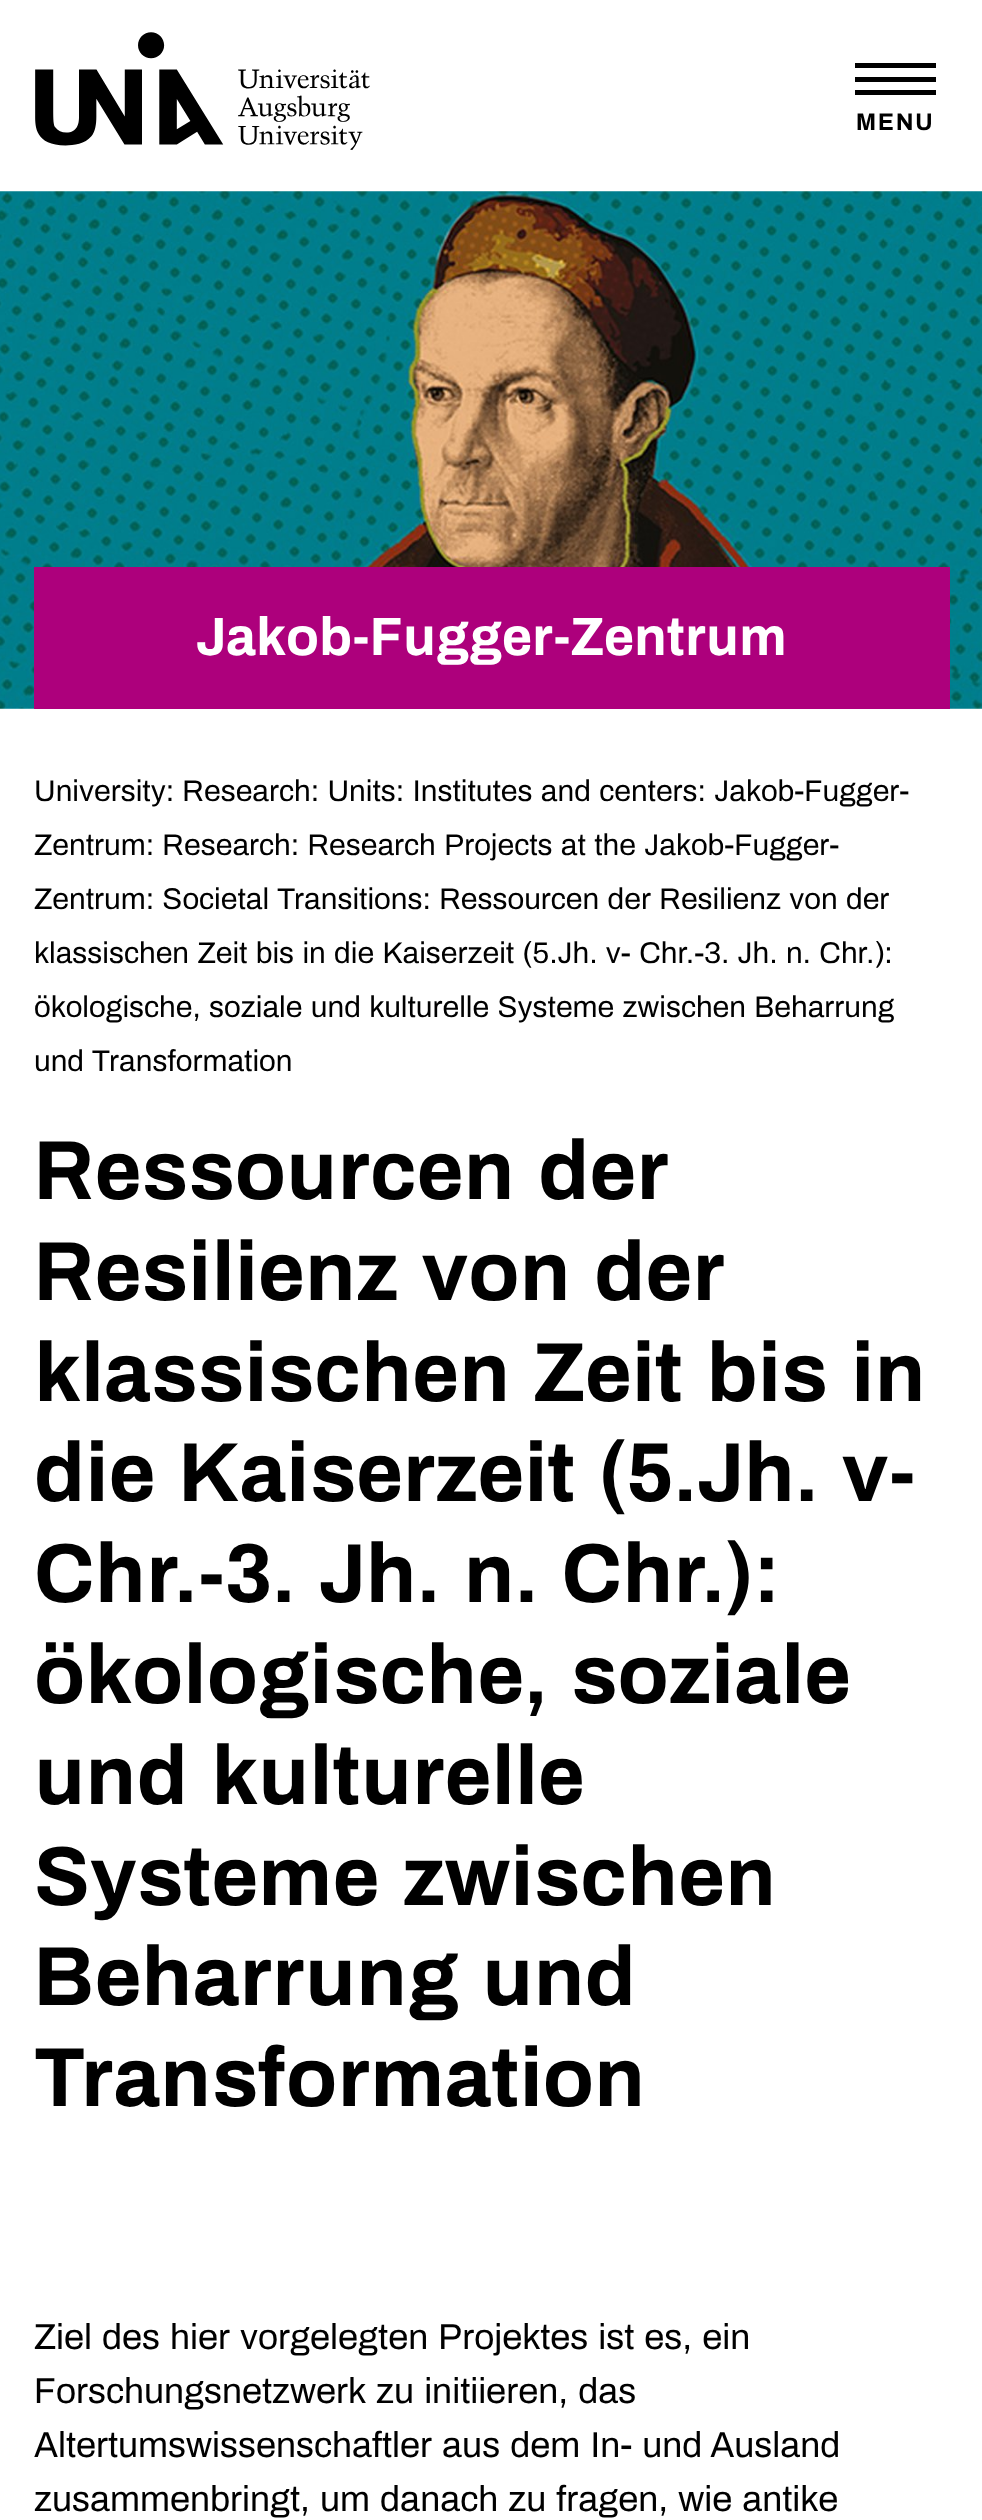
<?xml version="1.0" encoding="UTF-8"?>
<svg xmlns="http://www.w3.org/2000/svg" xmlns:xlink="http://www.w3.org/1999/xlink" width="982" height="2520">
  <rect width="100%" height="100%" fill="#ffffff" />
  <image x="35" y="32" width="335" height="118" xlink:href="image1.png" />
  <rect x="855" y="63" width="81" height="5" fill="#000000" />
  <rect x="855" y="77" width="81" height="5" fill="#000000" />
  <rect x="855" y="90" width="81" height="5" fill="#000000" />
  <image x="0" y="191" width="982" height="518" xlink:href="image2.png" />
  <rect x="34" y="567" width="916" height="142" fill="#ad007c" />
  <text x="856" y="130" style="font-family: Archivo; font-size: 24px; font-weight: bold; letter-spacing: 2px; fill: #000000">MENU</text>
  <text x="196" y="655" style="font-family: Archivo; font-size: 54px; font-weight: bold; fill: #ffffff">Jakob-Fugger-Zentrum</text>
  <text x="34" y="801" style="font-family: Archivo; font-size: 30px; fill: #000000">University: Research: Units: Institutes and centers: Jakob-Fugger-</text>
  <text x="34" y="855" style="font-family: Archivo; font-size: 30px; fill: #000000">Zentrum: Research: Research Projects at the Jakob-Fugger-</text>
  <text x="34" y="909" style="font-family: Archivo; font-size: 30px; fill: #000000">Zentrum: Societal Transitions: Ressourcen der Resilienz von der</text>
  <text x="34" y="963" style="font-family: Archivo; font-size: 30px; fill: #000000">klassischen Zeit bis in die Kaiserzeit (5.Jh. v- Chr.-3. Jh. n. Chr.):</text>
  <text x="34" y="1017" style="font-family: Archivo; font-size: 30px; fill: #000000">ökologische, soziale und kulturelle Systeme zwischen Beharrung</text>
  <text x="34" y="1071" style="font-family: Archivo; font-size: 30px; fill: #000000">und Transformation</text>
  <text x="34" y="1199" style="font-family: Archivo; font-size: 84px; font-weight: bold; fill: #000000">Ressourcen der</text>
  <text x="34" y="1300" style="font-family: Archivo; font-size: 84px; font-weight: bold; fill: #000000">Resilienz von der</text>
  <text x="34" y="1401" style="font-family: Archivo; font-size: 84px; font-weight: bold; fill: #000000">klassischen Zeit bis in</text>
  <text x="34" y="1501" style="font-family: Archivo; font-size: 84px; font-weight: bold; fill: #000000">die Kaiserzeit (5.Jh. v-</text>
  <text x="34" y="1602" style="font-family: Archivo; font-size: 84px; font-weight: bold; fill: #000000">Chr.-3. Jh. n. Chr.):</text>
  <text x="34" y="1703" style="font-family: Archivo; font-size: 84px; font-weight: bold; fill: #000000">ökologische, soziale</text>
  <text x="34" y="1804" style="font-family: Archivo; font-size: 84px; font-weight: bold; fill: #000000">und kulturelle</text>
  <text x="34" y="1905" style="font-family: Archivo; font-size: 84px; font-weight: bold; fill: #000000">Systeme zwischen</text>
  <text x="34" y="2005" style="font-family: Archivo; font-size: 84px; font-weight: bold; fill: #000000">Beharrung und</text>
  <text x="34" y="2106" style="font-family: Archivo; font-size: 84px; font-weight: bold; fill: #000000">Transformation</text>
  <text x="34" y="2349" style="font-family: Archivo; font-size: 36px; fill: #000000">Ziel des hier vorgelegten Projektes ist es, ein</text>
  <text x="34" y="2403" style="font-family: Archivo; font-size: 36px; fill: #000000">Forschungsnetzwerk zu initiieren, das</text>
  <text x="34" y="2457" style="font-family: Archivo; font-size: 36px; fill: #000000">Altertumswissenschaftler aus dem In- und Ausland</text>
  <text x="34" y="2511" style="font-family: Archivo; font-size: 36px; fill: #000000">zusammenbringt, um danach zu fragen, wie antike</text>
</svg>
